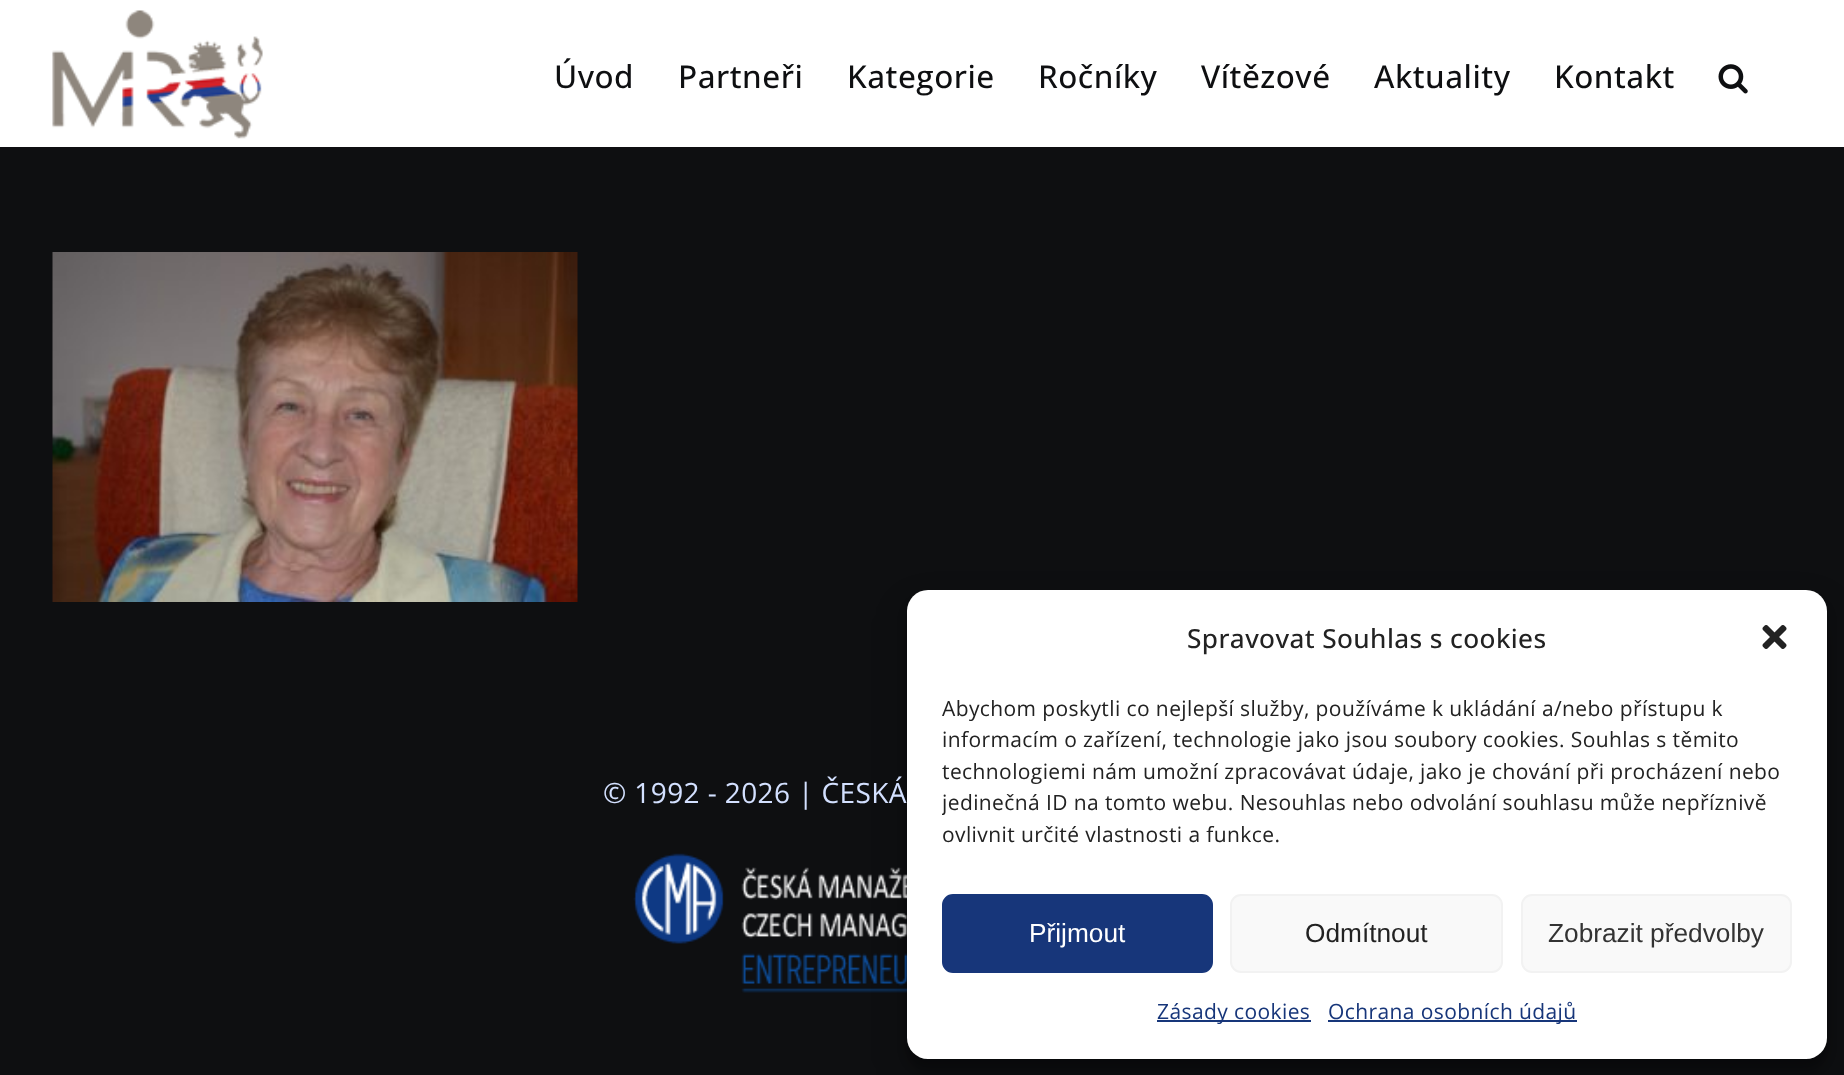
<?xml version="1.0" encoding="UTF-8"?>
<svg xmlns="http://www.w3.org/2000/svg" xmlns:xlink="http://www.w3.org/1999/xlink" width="1844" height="1075">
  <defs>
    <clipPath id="clip1"><rect x="942" y="693" width="850" height="166" /></clipPath>
  </defs>
  <rect width="100%" height="100%" fill="#0e0f11" />
  <rect width="1844" height="147" fill="#ffffff" />
  <image x="52" y="10" width="211" height="129" xlink:href="image1.png" />
  <image x="1718" y="64" width="30" height="30" xlink:href="image2.png" />
  <image x="52" y="252" width="526" height="350" xlink:href="image3.png" />
  <image x="633" y="853" width="274" height="140" xlink:href="image4.png" />
  <rect x="907" y="600" width="920" height="469" rx="21" fill="#000000" fill-opacity="0.23" filter="blur(5px)" />
  <rect x="907" y="607" width="920" height="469" rx="21" fill="#000000" fill-opacity="0.19" filter="blur(17.5px)" />
  <rect x="907" y="590" width="920" height="469" rx="21" fill="#ffffff" />
  <image x="1762" y="625" width="25" height="24" xlink:href="image5.png" />
  <rect x="943" y="895" width="269" height="77" rx="10" fill="#17367a" stroke="#17367a" stroke-width="2" />
  <rect x="1231" y="895" width="271" height="77" rx="10" fill="#f9f9f9" stroke="#f2f2f2" stroke-width="2" />
  <rect x="1522" y="895" width="269" height="77" rx="10" fill="#f9f9f9" stroke="#f2f2f2" stroke-width="2" />
  <rect x="1157" y="1020" width="154" height="2" fill="#17367a" />
  <rect x="1328" y="1020" width="249" height="2" fill="#17367a" />
  <text x="554" y="88" style="font-family: Open Sans; font-size: 31.5px; font-weight: 500; letter-spacing: 0.5px; fill: #0e0f11">Úvod</text>
  <text x="678" y="88" style="font-family: Open Sans; font-size: 31.5px; font-weight: 500; letter-spacing: 0.5px; fill: #0e0f11">Partneři</text>
  <text x="847" y="88" style="font-family: Open Sans; font-size: 31.5px; font-weight: 500; letter-spacing: 0.5px; fill: #0e0f11">Kategorie</text>
  <text x="1038" y="88" style="font-family: Open Sans; font-size: 31.5px; font-weight: 500; letter-spacing: 0.5px; fill: #0e0f11">Ročníky</text>
  <text x="1201" y="88" style="font-family: Open Sans; font-size: 31.5px; font-weight: 500; letter-spacing: 0.5px; fill: #0e0f11">Vítězové</text>
  <text x="1374" y="88" style="font-family: Open Sans; font-size: 31.5px; font-weight: 500; letter-spacing: 0.5px; fill: #0e0f11">Aktuality</text>
  <text x="1554" y="88" style="font-family: Open Sans; font-size: 31.5px; font-weight: 500; letter-spacing: 0.5px; fill: #0e0f11">Kontakt</text>
  <text x="603" y="803" style="font-family: Open Sans; font-size: 28px; letter-spacing: 0.4px; fill: #d3e0ff">© 1992 - 2026 | ČESKÁ</text>
  <text x="1187" y="648" style="font-family: Open Sans; font-size: 26.25px; font-weight: 500; letter-spacing: 0.4px; fill: #222222">Spravovat Souhlas s cookies</text>
  <text x="942" y="716" style="font-family: Open Sans; font-size: 21px; letter-spacing: 0.4px; fill: #222222">Abychom poskytli co nejlepší služby, používáme k ukládání a/nebo přístupu k</text>
  <text x="942" y="747" style="font-family: Open Sans; font-size: 21px; letter-spacing: 0.4px; fill: #222222">informacím o zařízení, technologie jako jsou soubory cookies. Souhlas s těmito</text>
  <text x="942" y="779" style="font-family: Open Sans; font-size: 21px; letter-spacing: 0.4px; fill: #222222">technologiemi nám umožní zpracovávat údaje, jako je chování při procházení nebo</text>
  <g clip-path="url(#clip1)">
    <text x="942" y="810" style="font-family: Open Sans; font-size: 21px; letter-spacing: 0.4px; fill: #222222">jedinečná ID na tomto webu. Nesouhlas nebo odvolání souhlasu může nepříznivě</text>
  </g>
  <text x="942" y="842" style="font-family: Open Sans; font-size: 21px; letter-spacing: 0.4px; fill: #222222">ovlivnit určité vlastnosti a funkce.</text>
  <text x="1029" y="942" style="font-family: Liberation Sans; font-size: 26.25px; fill: #ffffff">Přijmout</text>
  <text x="1305" y="942" style="font-family: Liberation Sans; font-size: 26.25px; fill: #222222">Odmítnout</text>
  <text x="1548" y="942" style="font-family: Liberation Sans; font-size: 26.25px; fill: #333333">Zobrazit předvolby</text>
  <text x="1157" y="1019" style="font-family: Open Sans; font-size: 21px; letter-spacing: 0.4px; fill: #17367a">Zásady cookies</text>
  <text x="1328" y="1019" style="font-family: Open Sans; font-size: 21px; letter-spacing: 0.4px; fill: #17367a">Ochrana osobních údajů</text>
</svg>
